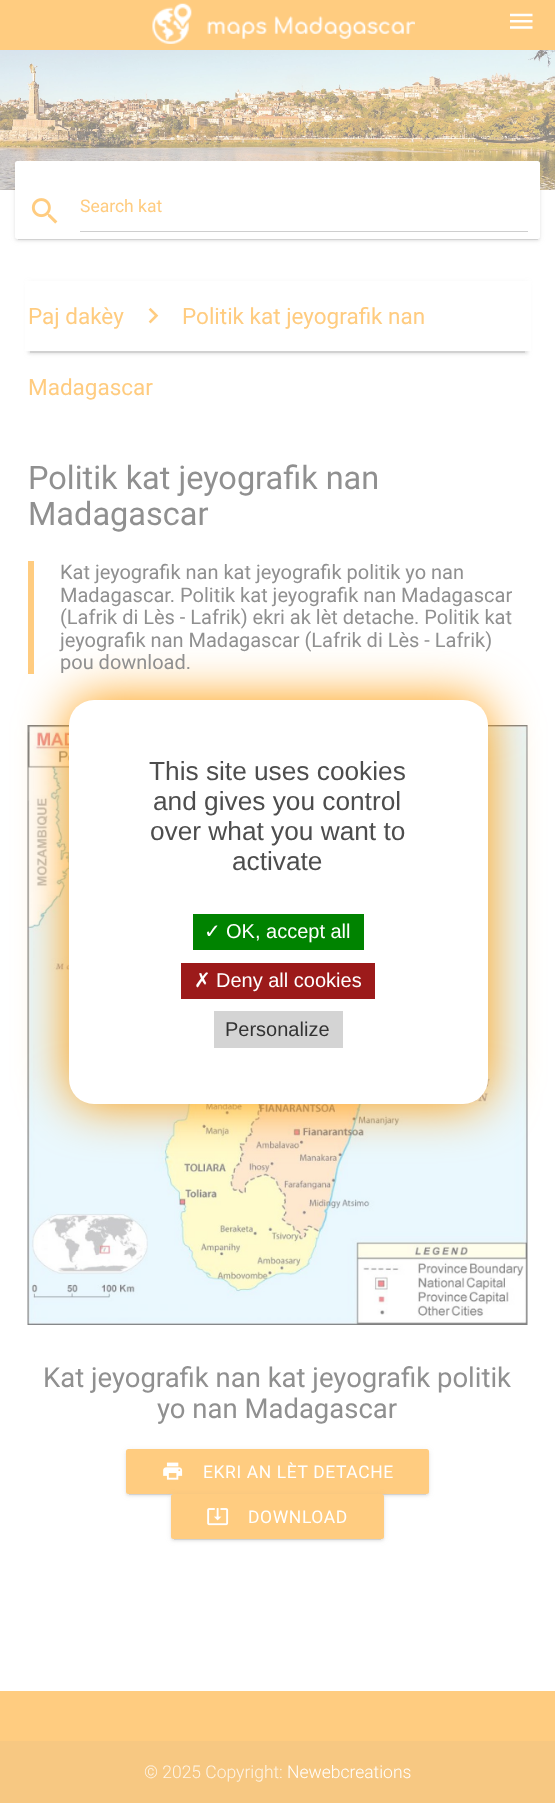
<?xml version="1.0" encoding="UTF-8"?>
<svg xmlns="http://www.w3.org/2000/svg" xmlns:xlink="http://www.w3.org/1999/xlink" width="555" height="1803">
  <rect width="100%" height="100%" fill="#ffffff" />
  <rect width="555" height="50" fill="#ffcc80" />
  <image x="152" y="3" width="263" height="41" xlink:href="image1.png" />
  <image x="510" y="13" width="23" height="16" xlink:href="image2.png" />
  <image x="0" y="50" width="555" height="140" xlink:href="image3.png" />
  <rect x="18" y="168" width="520" height="72" fill="#808080" fill-opacity="0.2" filter="blur(0.5px)" />
  <rect x="15" y="163" width="525" height="77" rx="2.5" fill="#808080" fill-opacity="0.12" filter="blur(3px)" />
  <rect x="15" y="164" width="525" height="77" rx="2.5" fill="#808080" fill-opacity="0.14" filter="blur(1px)" />
  <rect x="15" y="161" width="525" height="78" rx="2.5" fill="#ffffff" />
  <image x="31" y="198" width="27" height="26" xlink:href="image4.png" />
  <rect x="80" y="231" width="448" height="1" fill="#cfcfcf" />
  <rect x="30" y="288" width="495" height="65" fill="#808080" fill-opacity="0.2" filter="blur(0.5px)" />
  <rect x="28" y="283" width="500" height="70" fill="#808080" fill-opacity="0.12" filter="blur(3px)" />
  <rect x="28" y="284" width="500" height="70" fill="#808080" fill-opacity="0.14" filter="blur(1px)" />
  <rect x="25" y="281" width="506" height="70" fill="#ffffff" />
  <image x="148" y="307" width="11" height="17" xlink:href="image5.png" />
  <rect x="28" y="561" width="6" height="113" fill="#ffcc80" />
  <image x="27" y="725" width="501" height="600" xlink:href="image6.png" />
  <rect x="129" y="1455" width="297" height="40" fill="#808080" fill-opacity="0.2" filter="blur(0.5px)" />
  <rect x="126" y="1450" width="303" height="45" rx="2.5" fill="#808080" fill-opacity="0.12" filter="blur(3px)" />
  <rect x="126" y="1451" width="303" height="45" rx="2.5" fill="#808080" fill-opacity="0.14" filter="blur(1px)" />
  <rect x="126" y="1449" width="303" height="45" rx="2.5" fill="#ffcc80" />
  <image x="163" y="1462" width="20" height="18" xlink:href="image7.png" />
  <rect x="174" y="1500" width="207" height="40" fill="#808080" fill-opacity="0.2" filter="blur(0.5px)" />
  <rect x="171" y="1495" width="213" height="45" rx="2.5" fill="#808080" fill-opacity="0.12" filter="blur(3px)" />
  <rect x="171" y="1496" width="213" height="45" rx="2.5" fill="#808080" fill-opacity="0.14" filter="blur(1px)" />
  <rect x="171" y="1494" width="213" height="45" rx="2.5" fill="#ffcc80" />
  <image x="207" y="1508" width="22" height="18" xlink:href="image8.png" />
  <rect x="69" y="700" width="419" height="404" rx="25" fill="#ff9800" filter="blur(25px)" />
  <rect x="69" y="700" width="419" height="404" rx="25" fill="#ffffff" />
  <rect x="193" y="914" width="171" height="36" fill="#008300" />
  <rect x="181" y="963" width="194" height="36" fill="#9c1a1a" />
  <rect x="214" y="1011" width="129" height="37" fill="#d4d4d4" />
  <rect y="1691" width="555" height="50" fill="#ffcc80" />
  <rect y="1741" width="555" height="62" fill="#f7c882" />
  <text x="80" y="212" style="font-family: Roboto; font-size: 17.5px; fill: #ffcc80">Search kat</text>
  <text x="182" y="324" style="font-family: Roboto; font-size: 22.5px; fill: #ffcc80">Politik kat jeyografik nan</text>
  <text x="28" y="395" style="font-family: Roboto; font-size: 22.5px; fill: #ffcc80">Madagascar</text>
  <text x="28" y="324" style="font-family: Roboto; font-size: 22.5px; fill: #ffcc80">Paj dakèy</text>
  <text x="28" y="489" style="font-family: Roboto; font-size: 32.5px; fill: #909090">Politik kat jeyografik nan</text>
  <text x="28" y="525" style="font-family: Roboto; font-size: 32.5px; fill: #909090">Madagascar</text>
  <text x="60" y="579" style="font-family: Roboto; font-size: 20px; fill: #909090">Kat jeyografik nan kat jeyografik politik yo nan</text>
  <text x="60" y="602" style="font-family: Roboto; font-size: 20px; fill: #909090">Madagascar. Politik kat jeyografik nan Madagascar</text>
  <text x="60" y="624" style="font-family: Roboto; font-size: 20px; fill: #909090">(Lafrik di Lès - Lafrik) ekri ak lèt detache. Politik kat</text>
  <text x="60" y="647" style="font-family: Roboto; font-size: 20px; fill: #909090">jeyografik nan Madagascar (Lafrik di Lès - Lafrik)</text>
  <text x="60" y="669" style="font-family: Roboto; font-size: 20px; fill: #909090">pou download.</text>
  <text x="43" y="1387" style="font-family: Roboto; font-size: 27.5px; fill: #909090">Kat jeyografik nan kat jeyografik politik</text>
  <text x="157" y="1418" style="font-family: Roboto; font-size: 27.5px; fill: #909090">yo nan Madagascar</text>
  <text x="203" y="1478" style="font-family: Roboto; font-size: 17.5px; letter-spacing: 0.6px; fill: #ffffff">EKRI AN LÈT DETACHE</text>
  <text x="248" y="1523" style="font-family: Roboto; font-size: 17.5px; letter-spacing: 0.6px; fill: #ffffff">DOWNLOAD</text>
  <text x="149" y="780" style="font-family: Liberation Sans; font-size: 26.25px; fill: #4d4d4d">This site uses cookies</text>
  <text x="153" y="810" style="font-family: Liberation Sans; font-size: 26.25px; fill: #4d4d4d">and gives you control</text>
  <text x="150" y="840" style="font-family: Liberation Sans; font-size: 26.25px; fill: #4d4d4d">over what you want to</text>
  <text x="232" y="870" style="font-family: Liberation Sans; font-size: 26.25px; fill: #4d4d4d">activate</text>
  <text x="204" y="938" style="font-family: DejaVu Sans; font-size: 20px; fill: #ffffff">✓</text>
  <text x="226" y="938" style="font-family: Liberation Sans; font-size: 20px; fill: #ffffff">OK, accept all</text>
  <text x="194" y="987" style="font-family: DejaVu Sans; font-size: 20px; fill: #ffffff">✗</text>
  <text x="216" y="987" style="font-family: Liberation Sans; font-size: 20px; fill: #ffffff">Deny all cookies</text>
  <text x="225" y="1036" style="font-family: Liberation Sans; font-size: 20px; fill: #333333">Personalize</text>
  <text x="144" y="1778" style="font-family: Roboto; font-size: 17.5px; font-weight: 300; fill: #fef4e6">© 2025 Copyright:</text>
  <text x="287" y="1778" style="font-family: Roboto; font-size: 17.5px; font-weight: 300; fill: #ffffff">Newebcreations</text>
</svg>
